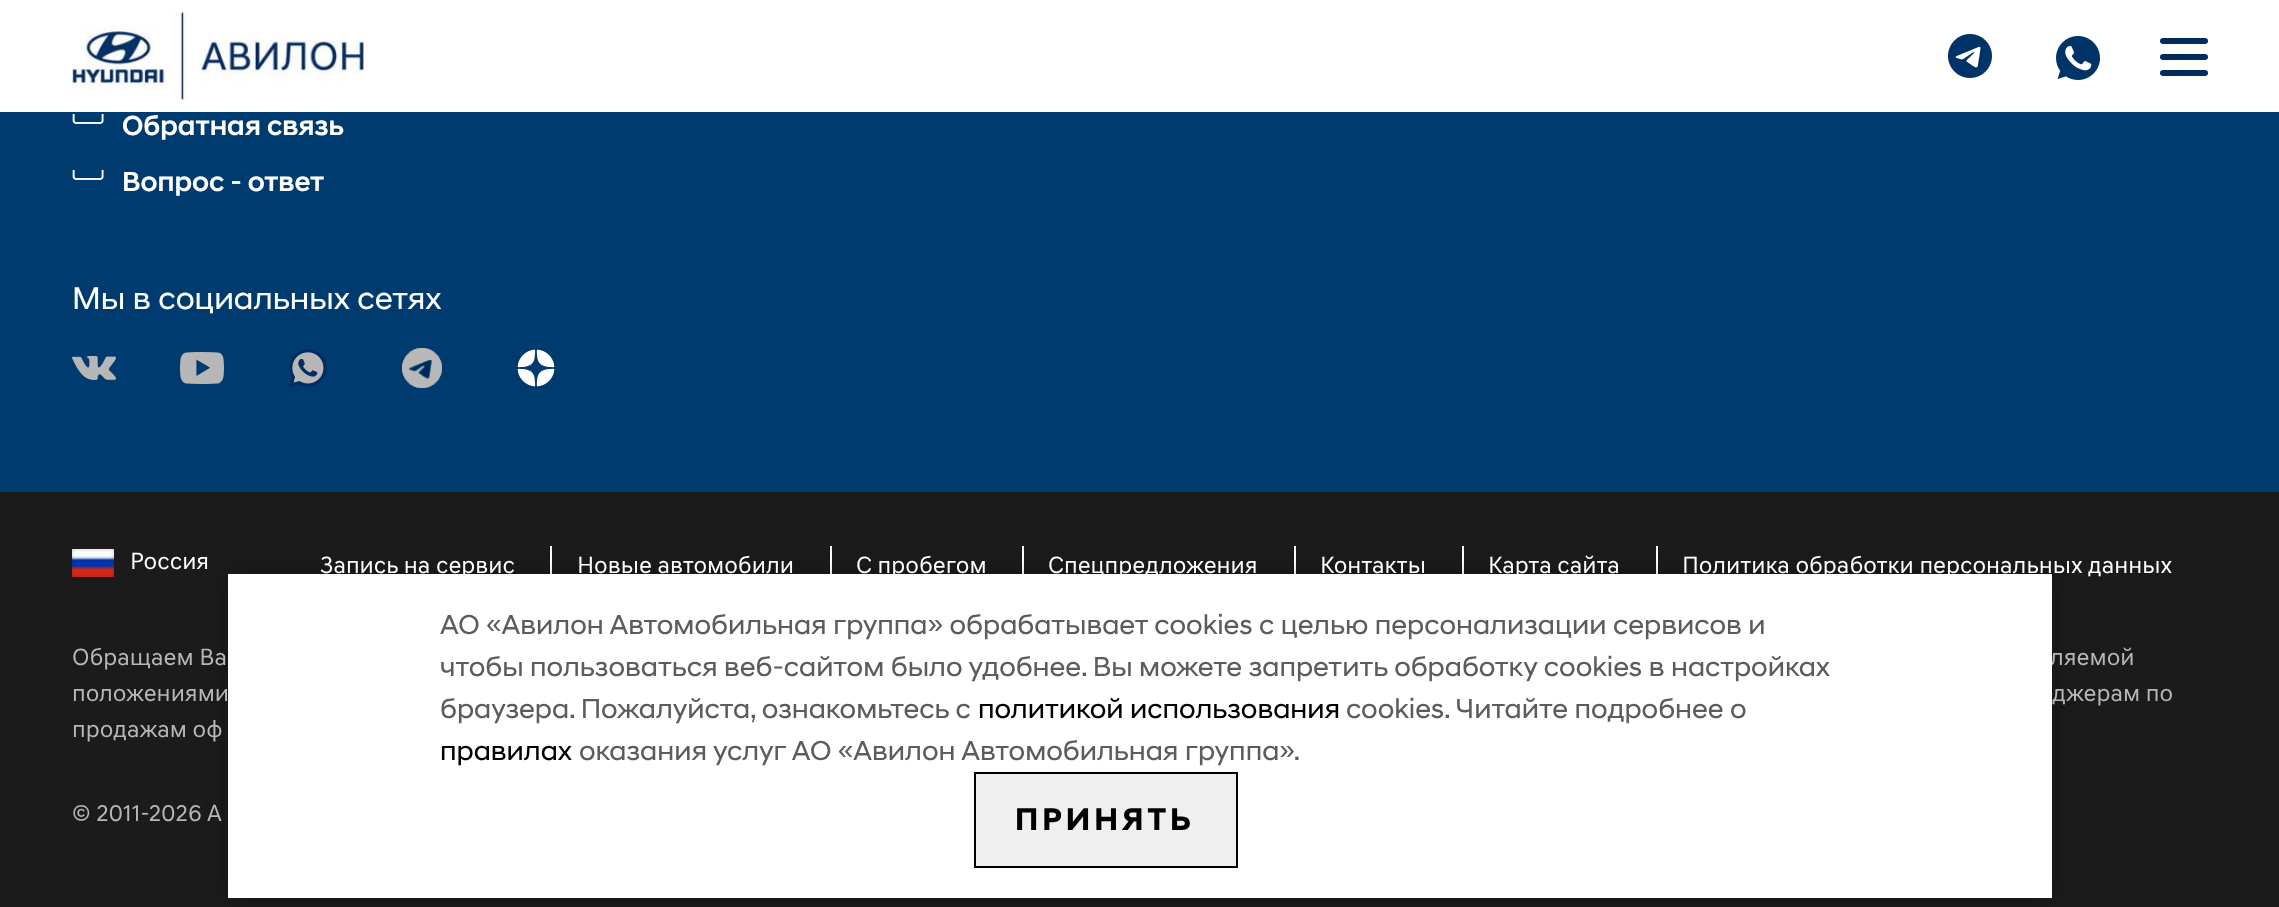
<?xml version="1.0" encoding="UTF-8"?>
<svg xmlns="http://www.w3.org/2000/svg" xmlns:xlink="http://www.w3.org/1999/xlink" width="2279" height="907">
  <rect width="100%" height="100%" fill="#003b70" />
  <rect width="2279" height="112" fill="#ffffff" />
  <image x="72" y="11" width="292" height="90" xlink:href="image1.png" />
  <image x="1948" y="34" width="44" height="44" xlink:href="image2.png" />
  <image x="2056" y="36" width="44" height="44" xlink:href="image3.png" />
  <rect x="2160" y="70" width="48" height="6" rx="3" fill="#002c5e" />
  <rect x="2160" y="38" width="48" height="6" rx="3" fill="#002c5e" />
  <rect x="2160" y="54" width="48" height="6" rx="3" fill="#002c5e" />
  <image x="72" y="114" width="32" height="10" xlink:href="image4.png" />
  <image x="72" y="170" width="32" height="10" xlink:href="image4.png" />
  <image x="72" y="356" width="44" height="24" xlink:href="image5.png" />
  <image x="180" y="352" width="44" height="32" xlink:href="image6.png" />
  <image x="289" y="349" width="38" height="38" xlink:href="image7.png" />
  <image x="402" y="348" width="40" height="40" xlink:href="image8.png" />
  <image x="517" y="349" width="38" height="38" xlink:href="image9.png" />
  <rect y="492" width="2279" height="415" fill="#1c1b1b" />
  <image x="72" y="549" width="42" height="28" xlink:href="image10.png" />
  <rect x="550" y="546" width="2" height="32" fill="#ffffff" />
  <rect x="830" y="546" width="2" height="32" fill="#ffffff" />
  <rect x="1022" y="546" width="2" height="32" fill="#ffffff" />
  <rect x="1294" y="546" width="2" height="32" fill="#ffffff" />
  <rect x="1462" y="546" width="2" height="32" fill="#ffffff" />
  <rect x="1656" y="546" width="2" height="32" fill="#ffffff" />
  <rect x="228" y="574" width="1824" height="324" fill="#000000" fill-opacity="0.25" filter="blur(10px)" />
  <text x="122" y="135" style="font-family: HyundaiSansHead; font-size: 28px; font-weight: 500; fill: #ffffff">Обратная связь</text>
  <text x="122" y="191" style="font-family: HyundaiSansHead; font-size: 28px; font-weight: 500; fill: #ffffff">Вопрос - ответ</text>
  <text x="72" y="309" style="font-family: HyundaiSansHead; font-size: 32px; fill: #ffffff">Мы в социальных сетях</text>
  <text x="130" y="569" style="font-family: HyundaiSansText; font-size: 24px; fill: #ffffff">Россия</text>
  <text x="320" y="573" style="font-family: HyundaiSansText; font-size: 24px; fill: #ffffff">Запись на сервис</text>
  <text x="577" y="573" style="font-family: HyundaiSansText; font-size: 24px; fill: #ffffff">Новые автомобили</text>
  <text x="856" y="573" style="font-family: HyundaiSansText; font-size: 24px; fill: #ffffff">С пробегом</text>
  <text x="1048" y="573" style="font-family: HyundaiSansText; font-size: 24px; fill: #ffffff">Спецпредложения</text>
  <text x="1320" y="573" style="font-family: HyundaiSansText; font-size: 24px; fill: #ffffff">Контакты</text>
  <text x="1488" y="573" style="font-family: HyundaiSansText; font-size: 24px; fill: #ffffff">Карта сайта</text>
  <text x="1682" y="573" style="font-family: HyundaiSansText; font-size: 24px; fill: #ffffff">Политика обработки персональных данных</text>
  <text x="72" y="665" style="font-family: HyundaiSansText; font-size: 24px; fill: #b7b7b7">Обращаем Ва</text>
  <text x="2050" y="665" style="font-family: HyundaiSansText; font-size: 24px; fill: #b7b7b7">ляемой</text>
  <text x="72" y="701" style="font-family: HyundaiSansText; font-size: 24px; fill: #b7b7b7">положениями</text>
  <text x="2052" y="701" style="font-family: HyundaiSansText; font-size: 24px; fill: #b7b7b7">джерам по</text>
  <text x="72" y="737" style="font-family: HyundaiSansText; font-size: 24px; fill: #b7b7b7">продажам оф</text>
  <text x="72" y="821" style="font-family: HyundaiSansText; font-size: 24px; fill: #b7b7b7">© 2011-2026 А</text>
  <rect x="228" y="574" width="1824" height="324" fill="#ffffff" />
  <text x="440" y="634" style="font-family: HyundaiSansHead; font-size: 28px; fill: #5b5c5d">АО «Авилон Автомобильная группа» обрабатывает cookies с целью персонализации сервисов и</text>
  <text x="440" y="676" style="font-family: HyundaiSansHead; font-size: 28px; fill: #5b5c5d">чтобы пользоваться веб-сайтом было удобнее. Вы можете запретить обработку сookies в настройках</text>
  <text x="440" y="718" style="font-family: HyundaiSansHead; font-size: 28px; fill: #5b5c5d">браузера. Пожалуйста, ознакомьтесь с</text>
  <text x="978" y="718" style="font-family: HyundaiSansHead; font-size: 28px; fill: #000000">политикой использования</text>
  <text x="1346" y="718" style="font-family: HyundaiSansHead; font-size: 28px; fill: #5b5c5d">cookies. Читайте подробнее о</text>
  <text x="440" y="760" style="font-family: HyundaiSansHead; font-size: 28px; fill: #000000">правилах</text>
  <text x="579" y="760" style="font-family: HyundaiSansHead; font-size: 28px; fill: #5b5c5d">оказания услуг АО «Авилон Автомобильная группа».</text>
  <rect x="975" y="773" width="262" height="94" fill="#efefef" stroke="#000000" stroke-width="2" />
  <text x="1015" y="830" style="font-family: HyundaiSansHead; font-size: 32px; font-weight: bold; letter-spacing: 4px; fill: #000000">ПРИНЯТЬ</text>
</svg>
